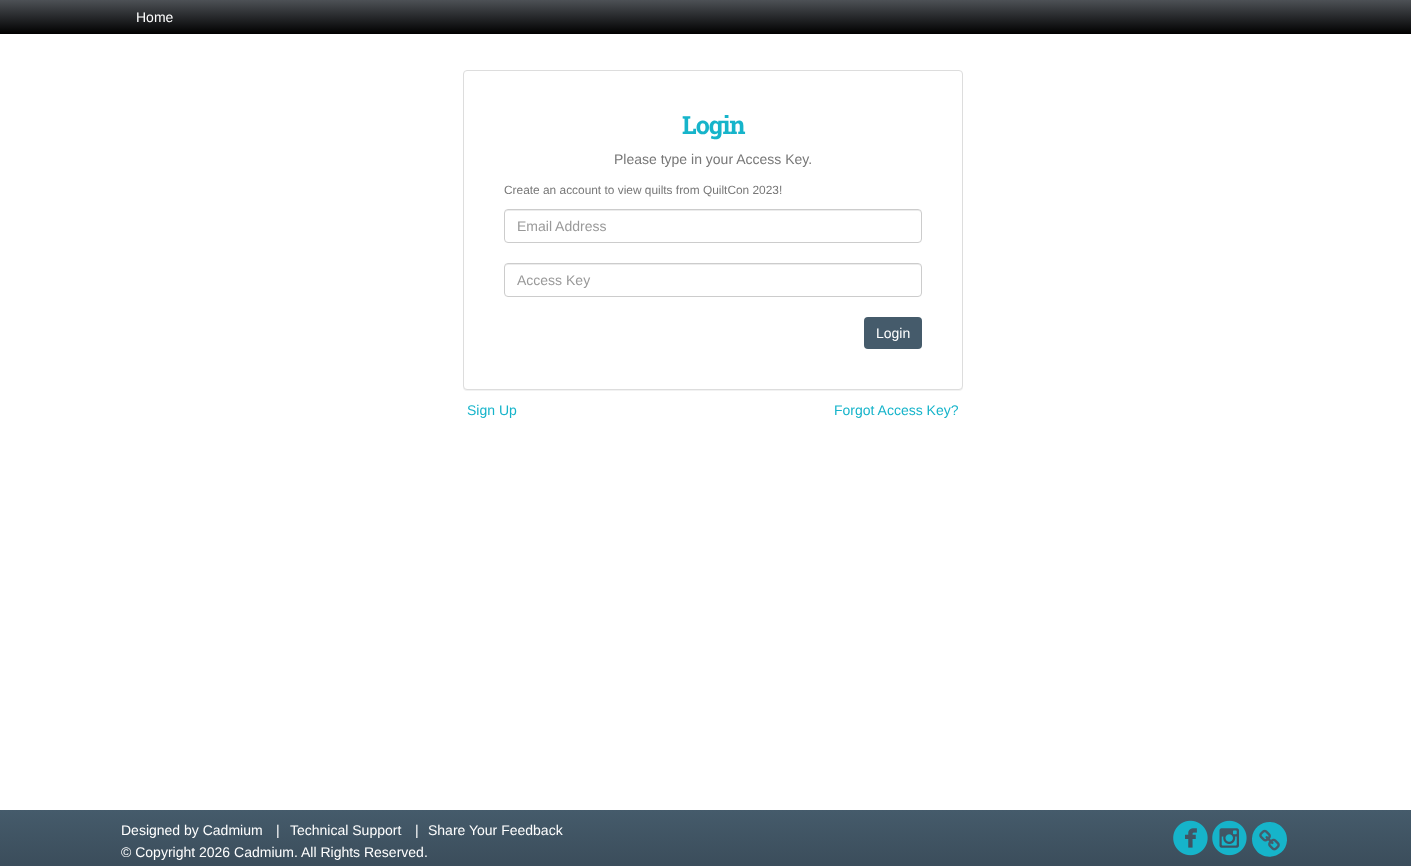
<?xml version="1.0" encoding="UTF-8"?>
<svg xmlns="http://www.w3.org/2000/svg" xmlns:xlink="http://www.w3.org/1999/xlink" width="1411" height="866">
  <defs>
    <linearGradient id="g1" gradientUnits="userSpaceOnUse" x1="706" y1="0" x2="706" y2="34"><stop offset="0" stop-color="#4d5156" /><stop offset="1" stop-color="#000000" /></linearGradient>
    <linearGradient id="g2" gradientUnits="userSpaceOnUse" x1="706" y1="810" x2="706" y2="866"><stop offset="0" stop-color="#455b6b" /><stop offset="1" stop-color="#3b4d5b" /></linearGradient>
  </defs>
  <rect width="100%" height="100%" fill="#ffffff" />
  <rect width="1411" height="34" fill="url(#g1)" />
  <rect x="463" y="71" width="500" height="320" rx="4" fill="#000000" fill-opacity="0.05" filter="blur(0.5px)" />
  <rect x="463.5" y="70.5" width="499" height="319" rx="3.5" fill="#ffffff" stroke="#dddddd" />
  <path d="M 508 211 h 410 c 2 0 3 1 3 3 c 0 -2 -1 -4 -3 -4 h -410 c -2 0 -3 2 -3 4 c 0 -2 1 -3 3 -3 z" fill="#ececec" />
  <rect x="504.5" y="209.5" width="417" height="33" rx="3.5" fill="none" stroke="#cccccc" />
  <path d="M 508 265 h 410 c 2 0 3 1 3 3 c 0 -2 -1 -4 -3 -4 h -410 c -2 0 -3 2 -3 4 c 0 -2 1 -3 3 -3 z" fill="#ececec" />
  <rect x="504.5" y="263.5" width="417" height="33" rx="3.5" fill="none" stroke="#cccccc" />
  <rect x="864" y="317" width="58" height="32" rx="4" fill="#455b6b" />
  <rect y="810" width="1411" height="56" fill="url(#g2)" />
  <image x="1173" y="820" width="35" height="36" xlink:href="image1.png" />
  <image x="1212" y="820" width="35" height="36" xlink:href="image2.png" />
  <path d="M 1284.5 830.5 c 2 3 2.5 6.5 2.5 10 c -1 17 -24 22.5 -32.5 7.5 c -2 -3 -2.5 -6 -2.5 -9.5 c 1 -17.5 24 -22.5 32.5 -8 z" fill="#16b4ca" />
  <image x="1259" y="829" width="21" height="22" xlink:href="image3.png" />
  <text x="136" y="22" style="font-family: Liberation Sans; font-size: 14px; fill: #ffffff">Home</text>
  <text x="682" y="134" style="font-family: Roboto Slab; font-size: 25px; font-weight: bold; letter-spacing: -1px; fill: #16b4ca">Login</text>
  <text x="614" y="164" style="font-family: Liberation Sans; font-size: 14px; fill: #777777">Please type in your Access Key.</text>
  <text x="504" y="194" style="font-family: Liberation Sans; font-size: 11.9px; fill: #777777">Create an account to view quilts from QuiltCon 2023!</text>
  <text x="517" y="231" style="font-family: Liberation Sans; font-size: 14px; fill: #999999">Email Address</text>
  <text x="517" y="285" style="font-family: Liberation Sans; font-size: 14px; fill: #999999">Access Key</text>
  <text x="876" y="338" style="font-family: Liberation Sans; font-size: 14px; fill: #ffffff">Login</text>
  <text x="467" y="415" style="font-family: Liberation Sans; font-size: 14px; fill: #16b4ca">Sign Up</text>
  <text x="834" y="415" style="font-family: Liberation Sans; font-size: 14px; fill: #16b4ca">Forgot Access Key?</text>
  <text x="121" y="835" style="font-family: Liberation Sans; font-size: 14px; fill: #ffffff">Designed by Cadmium</text>
  <text x="276" y="835" style="font-family: Liberation Sans; font-size: 14px; fill: #ffffff">|</text>
  <text x="290" y="835" style="font-family: Liberation Sans; font-size: 14px; fill: #ffffff">Technical Support</text>
  <text x="415" y="835" style="font-family: Liberation Sans; font-size: 14px; fill: #ffffff">|</text>
  <text x="428" y="835" style="font-family: Liberation Sans; font-size: 14px; fill: #ffffff">Share Your Feedback</text>
  <text x="121" y="857" style="font-family: Liberation Sans; font-size: 14px; fill: #ffffff">© Copyright 2026 Cadmium. All Rights Reserved.</text>
</svg>
